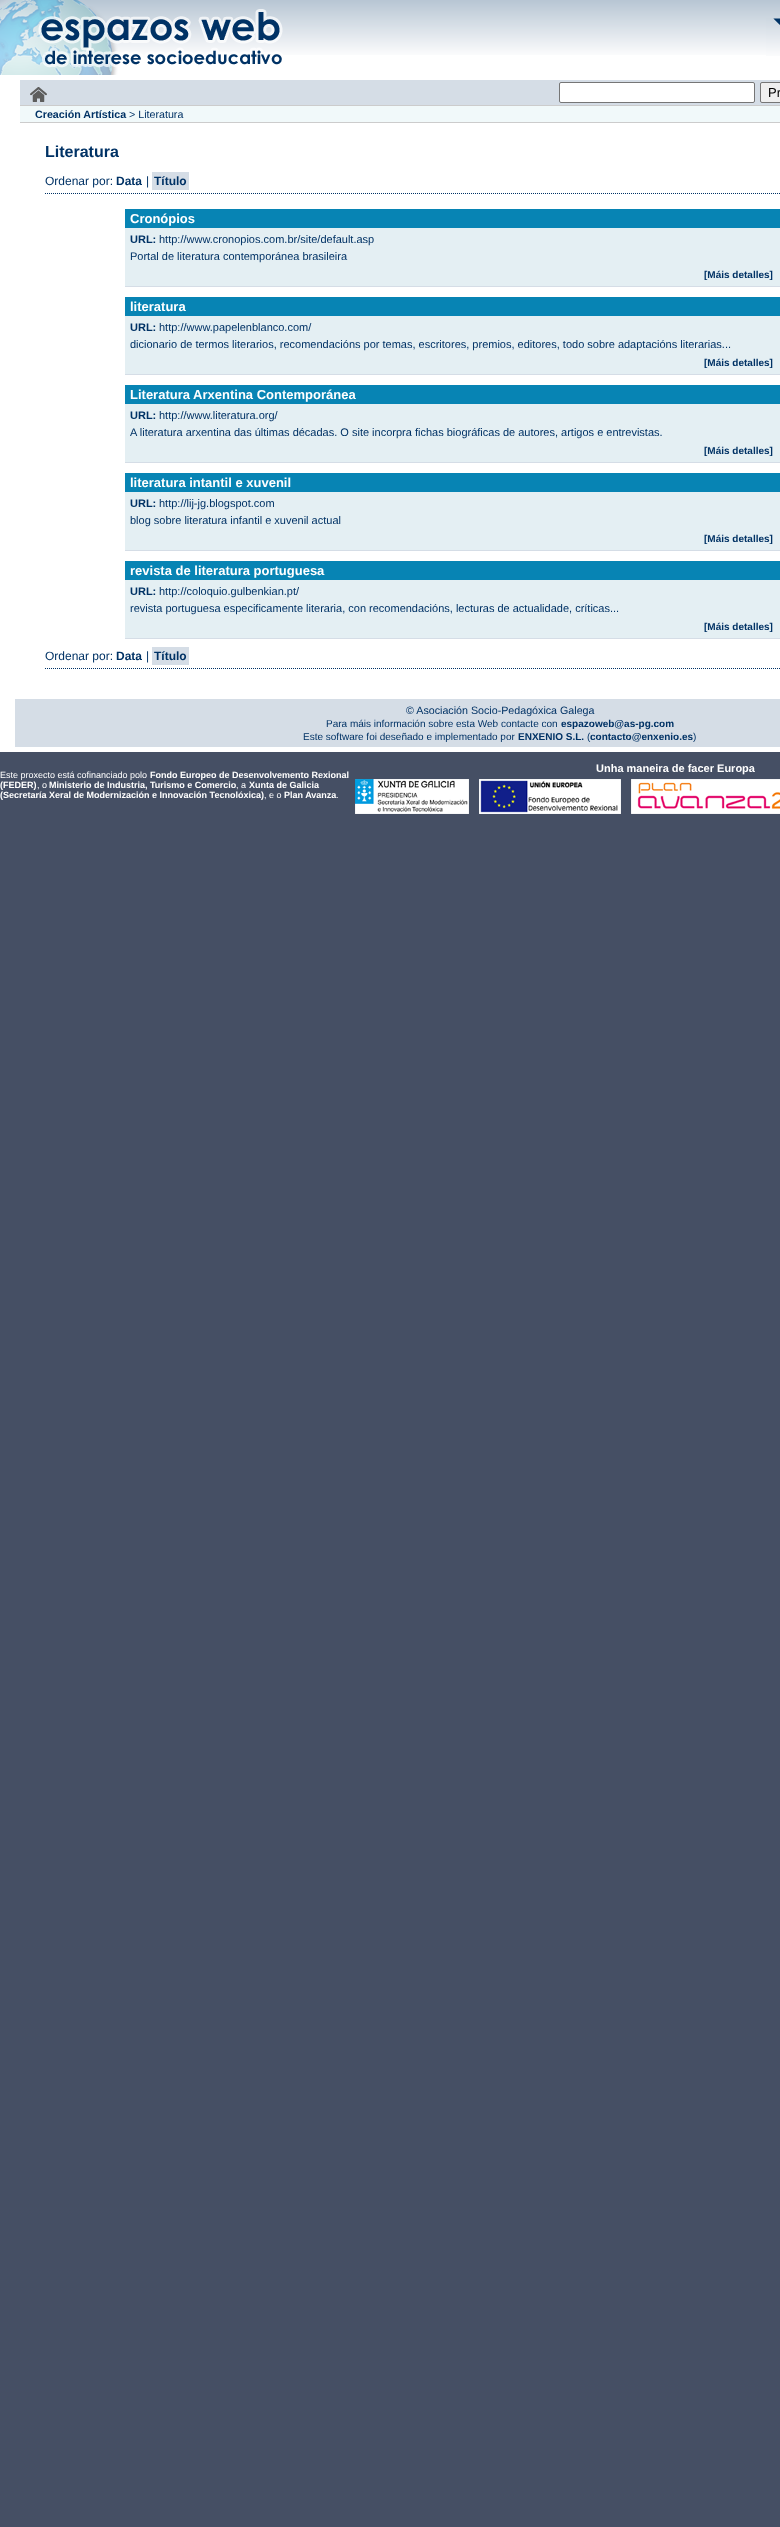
<?xml version="1.0" encoding="UTF-8"?>
<svg xmlns="http://www.w3.org/2000/svg" xmlns:xlink="http://www.w3.org/1999/xlink" width="780" height="2527">
  <rect width="100%" height="100%" fill="#454f64" />
  <rect y="55" width="780" height="697" fill="#ffffff" />
  <image x="283" y="0" width="497" height="55" xlink:href="image1.png" />
  <image x="0" y="0" width="283" height="75" xlink:href="image2.png" />
  <image x="766" y="18" width="14" height="38" xlink:href="image3.png" />
  <rect x="20" y="80" width="760" height="25" fill="#d5dde6" />
  <image x="30" y="87" width="17" height="15" xlink:href="image4.png" />
  <rect x="559.5" y="82.5" width="195" height="20" rx="1.5" fill="#ffffff" stroke="#767676" />
  <rect x="760.5" y="82.5" width="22" height="20" rx="1.5" fill="#efefef" stroke="#767676" />
  <rect x="20" y="106" width="760" height="16" fill="#f1f9fa" />
  <rect x="20" y="105" width="760" height="1" fill="#cccccc" />
  <rect x="20" y="122" width="760" height="1" fill="#cccccc" />
  <path d="M 45 193.5 h 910" fill="none" stroke="#003265" stroke-dasharray="1 1" />
  <rect x="152" y="172" width="37" height="18" fill="#d5dde6" />
  <rect x="125" y="228" width="655" height="58" fill="#e4eff3" />
  <rect x="125" y="286" width="655" height="1" fill="#d5dde6" />
  <rect x="125" y="209" width="655" height="19" fill="#0784b4" />
  <rect x="125" y="316" width="655" height="58" fill="#e4eff3" />
  <rect x="125" y="374" width="655" height="1" fill="#d5dde6" />
  <rect x="125" y="297" width="655" height="19" fill="#0784b4" />
  <rect x="125" y="404" width="655" height="58" fill="#e4eff3" />
  <rect x="125" y="462" width="655" height="1" fill="#d5dde6" />
  <rect x="125" y="385" width="655" height="19" fill="#0784b4" />
  <rect x="125" y="492" width="655" height="58" fill="#e4eff3" />
  <rect x="125" y="550" width="655" height="1" fill="#d5dde6" />
  <rect x="125" y="473" width="655" height="19" fill="#0784b4" />
  <rect x="125" y="580" width="655" height="58" fill="#e4eff3" />
  <rect x="125" y="638" width="655" height="1" fill="#d5dde6" />
  <rect x="125" y="561" width="655" height="19" fill="#0784b4" />
  <path d="M 45 668.5 h 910" fill="none" stroke="#003265" stroke-dasharray="1 1" />
  <rect x="152" y="647" width="37" height="18" fill="#d5dde6" />
  <rect x="15" y="699" width="765" height="48" fill="#d5dde6" />
  <image x="355" y="779" width="114" height="35" xlink:href="image5.png" />
  <image x="479" y="779" width="142" height="35" xlink:href="image6.png" />
  <image x="631" y="779" width="149" height="35" xlink:href="image7.png" />
  <text x="768" y="97" style="font-family: Liberation Sans; font-size: 13px; fill: #000000">Pr</text>
  <text x="35" y="118" style="font-family: Liberation Sans; font-size: 10.7px; font-weight: bold; fill: #003265">Creación Artística</text>
  <text x="129" y="118" style="font-family: Liberation Sans; font-size: 10.7px; fill: #003265">&gt; Literatura</text>
  <text x="45" y="157" style="font-family: Liberation Sans; font-size: 16px; font-weight: bold; fill: #003265">Literatura</text>
  <text x="45" y="185" style="font-family: Liberation Sans; font-size: 12px; fill: #003265">Ordenar por:</text>
  <text x="116" y="185" style="font-family: Liberation Sans; font-size: 12px; font-weight: bold; fill: #003265">Data</text>
  <text x="146" y="185" style="font-family: Liberation Sans; font-size: 12px; fill: #003265">|</text>
  <text x="154" y="185" style="font-family: Liberation Sans; font-size: 12px; font-weight: bold; fill: #003265">Título</text>
  <text x="130" y="223" style="font-family: Liberation Sans; font-size: 13px; font-weight: bold; fill: #ffffff">Cronópios</text>
  <text x="130" y="243" style="font-family: Liberation Sans; font-size: 11px; font-weight: bold; fill: #003265">URL:</text>
  <text x="159" y="243" style="font-family: Liberation Sans; font-size: 11px; fill: #003265">http://www.cronopios.com.br/site/default.asp</text>
  <text x="130" y="260" style="font-family: Liberation Sans; font-size: 11px; fill: #003265">Portal de literatura contemporánea brasileira</text>
  <text x="704" y="278" style="font-family: Liberation Sans; font-size: 10px; font-weight: bold; fill: #003265">[Máis detalles]</text>
  <text x="130" y="311" style="font-family: Liberation Sans; font-size: 13px; font-weight: bold; fill: #ffffff">literatura</text>
  <text x="130" y="331" style="font-family: Liberation Sans; font-size: 11px; font-weight: bold; fill: #003265">URL:</text>
  <text x="159" y="331" style="font-family: Liberation Sans; font-size: 11px; fill: #003265">http://www.papelenblanco.com/</text>
  <text x="130" y="348" style="font-family: Liberation Sans; font-size: 11px; fill: #003265">dicionario de termos literarios, recomendacións por temas, escritores, premios, editores, todo sobre adaptacións literarias...</text>
  <text x="704" y="366" style="font-family: Liberation Sans; font-size: 10px; font-weight: bold; fill: #003265">[Máis detalles]</text>
  <text x="130" y="399" style="font-family: Liberation Sans; font-size: 13px; font-weight: bold; fill: #ffffff">Literatura Arxentina Contemporánea</text>
  <text x="130" y="419" style="font-family: Liberation Sans; font-size: 11px; font-weight: bold; fill: #003265">URL:</text>
  <text x="159" y="419" style="font-family: Liberation Sans; font-size: 11px; fill: #003265">http://www.literatura.org/</text>
  <text x="130" y="436" style="font-family: Liberation Sans; font-size: 11px; fill: #003265">A literatura arxentina das últimas décadas. O site incorpra fichas biográficas de autores, artigos e entrevistas.</text>
  <text x="704" y="454" style="font-family: Liberation Sans; font-size: 10px; font-weight: bold; fill: #003265">[Máis detalles]</text>
  <text x="130" y="487" style="font-family: Liberation Sans; font-size: 13px; font-weight: bold; fill: #ffffff">literatura intantil e xuvenil</text>
  <text x="130" y="507" style="font-family: Liberation Sans; font-size: 11px; font-weight: bold; fill: #003265">URL:</text>
  <text x="159" y="507" style="font-family: Liberation Sans; font-size: 11px; fill: #003265">http://lij-jg.blogspot.com</text>
  <text x="130" y="524" style="font-family: Liberation Sans; font-size: 11px; fill: #003265">blog sobre literatura infantil e xuvenil actual</text>
  <text x="704" y="542" style="font-family: Liberation Sans; font-size: 10px; font-weight: bold; fill: #003265">[Máis detalles]</text>
  <text x="130" y="575" style="font-family: Liberation Sans; font-size: 13px; font-weight: bold; fill: #ffffff">revista de literatura portuguesa</text>
  <text x="130" y="595" style="font-family: Liberation Sans; font-size: 11px; font-weight: bold; fill: #003265">URL:</text>
  <text x="159" y="595" style="font-family: Liberation Sans; font-size: 11px; fill: #003265">http://coloquio.gulbenkian.pt/</text>
  <text x="130" y="612" style="font-family: Liberation Sans; font-size: 11px; fill: #003265">revista portuguesa especificamente literaria, con recomendacións, lecturas de actualidade, críticas...</text>
  <text x="704" y="630" style="font-family: Liberation Sans; font-size: 10px; font-weight: bold; fill: #003265">[Máis detalles]</text>
  <text x="45" y="660" style="font-family: Liberation Sans; font-size: 12px; fill: #003265">Ordenar por:</text>
  <text x="116" y="660" style="font-family: Liberation Sans; font-size: 12px; font-weight: bold; fill: #003265">Data</text>
  <text x="146" y="660" style="font-family: Liberation Sans; font-size: 12px; fill: #003265">|</text>
  <text x="154" y="660" style="font-family: Liberation Sans; font-size: 12px; font-weight: bold; fill: #003265">Título</text>
  <text x="406" y="714" style="font-family: Liberation Sans; font-size: 10.7px; fill: #003265">© Asociación Socio-Pedagóxica Galega</text>
  <text x="326" y="727" style="font-family: Liberation Sans; font-size: 10px; fill: #003265">Para máis información sobre esta Web contacte con</text>
  <text x="561" y="727" style="font-family: Liberation Sans; font-size: 10px; font-weight: bold; fill: #003265">espazoweb@as-pg.com</text>
  <text x="303" y="740" style="font-family: Liberation Sans; font-size: 10px; fill: #003265">Este software foi deseñado e implementado por</text>
  <text x="518" y="740" style="font-family: Liberation Sans; font-size: 10px; font-weight: bold; fill: #003265">ENXENIO S.L.</text>
  <text x="587" y="740" style="font-family: Liberation Sans; font-size: 10px; fill: #003265">(</text>
  <text x="590" y="740" style="font-family: Liberation Sans; font-size: 10px; font-weight: bold; fill: #003265">contacto@enxenio.es</text>
  <text x="693" y="740" style="font-family: Liberation Sans; font-size: 10px; fill: #003265">)</text>
  <text x="596" y="772" style="font-family: Liberation Sans; font-size: 11px; font-weight: bold; fill: #ffffff">Unha maneira de facer Europa</text>
  <text x="0" y="778" style="font-family: Liberation Sans; font-size: 9px; fill: #ffffff">Este proxecto está cofinanciado polo</text>
  <text x="150" y="778" style="font-family: Liberation Sans; font-size: 9px; font-weight: bold; fill: #ffffff">Fondo Europeo de Desenvolvemento Rexional</text>
  <text x="0" y="788" style="font-family: Liberation Sans; font-size: 9px; font-weight: bold; fill: #ffffff">(FEDER)</text>
  <text x="37" y="788" style="font-family: Liberation Sans; font-size: 9px; fill: #ffffff">, o</text>
  <text x="49" y="788" style="font-family: Liberation Sans; font-size: 9px; font-weight: bold; fill: #ffffff">Ministerio de Industria, Turismo e Comercio</text>
  <text x="236" y="788" style="font-family: Liberation Sans; font-size: 9px; fill: #ffffff">, a</text>
  <text x="249" y="788" style="font-family: Liberation Sans; font-size: 9px; font-weight: bold; fill: #ffffff">Xunta de Galicia</text>
  <text x="0" y="798" style="font-family: Liberation Sans; font-size: 9px; font-weight: bold; fill: #ffffff">(Secretaría Xeral de Modernización e Innovación Tecnolóxica)</text>
  <text x="264" y="798" style="font-family: Liberation Sans; font-size: 9px; fill: #ffffff">, e o</text>
  <text x="284" y="798" style="font-family: Liberation Sans; font-size: 9px; font-weight: bold; fill: #ffffff">Plan Avanza</text>
  <text x="336" y="798" style="font-family: Liberation Sans; font-size: 9px; fill: #ffffff">.</text>
</svg>
